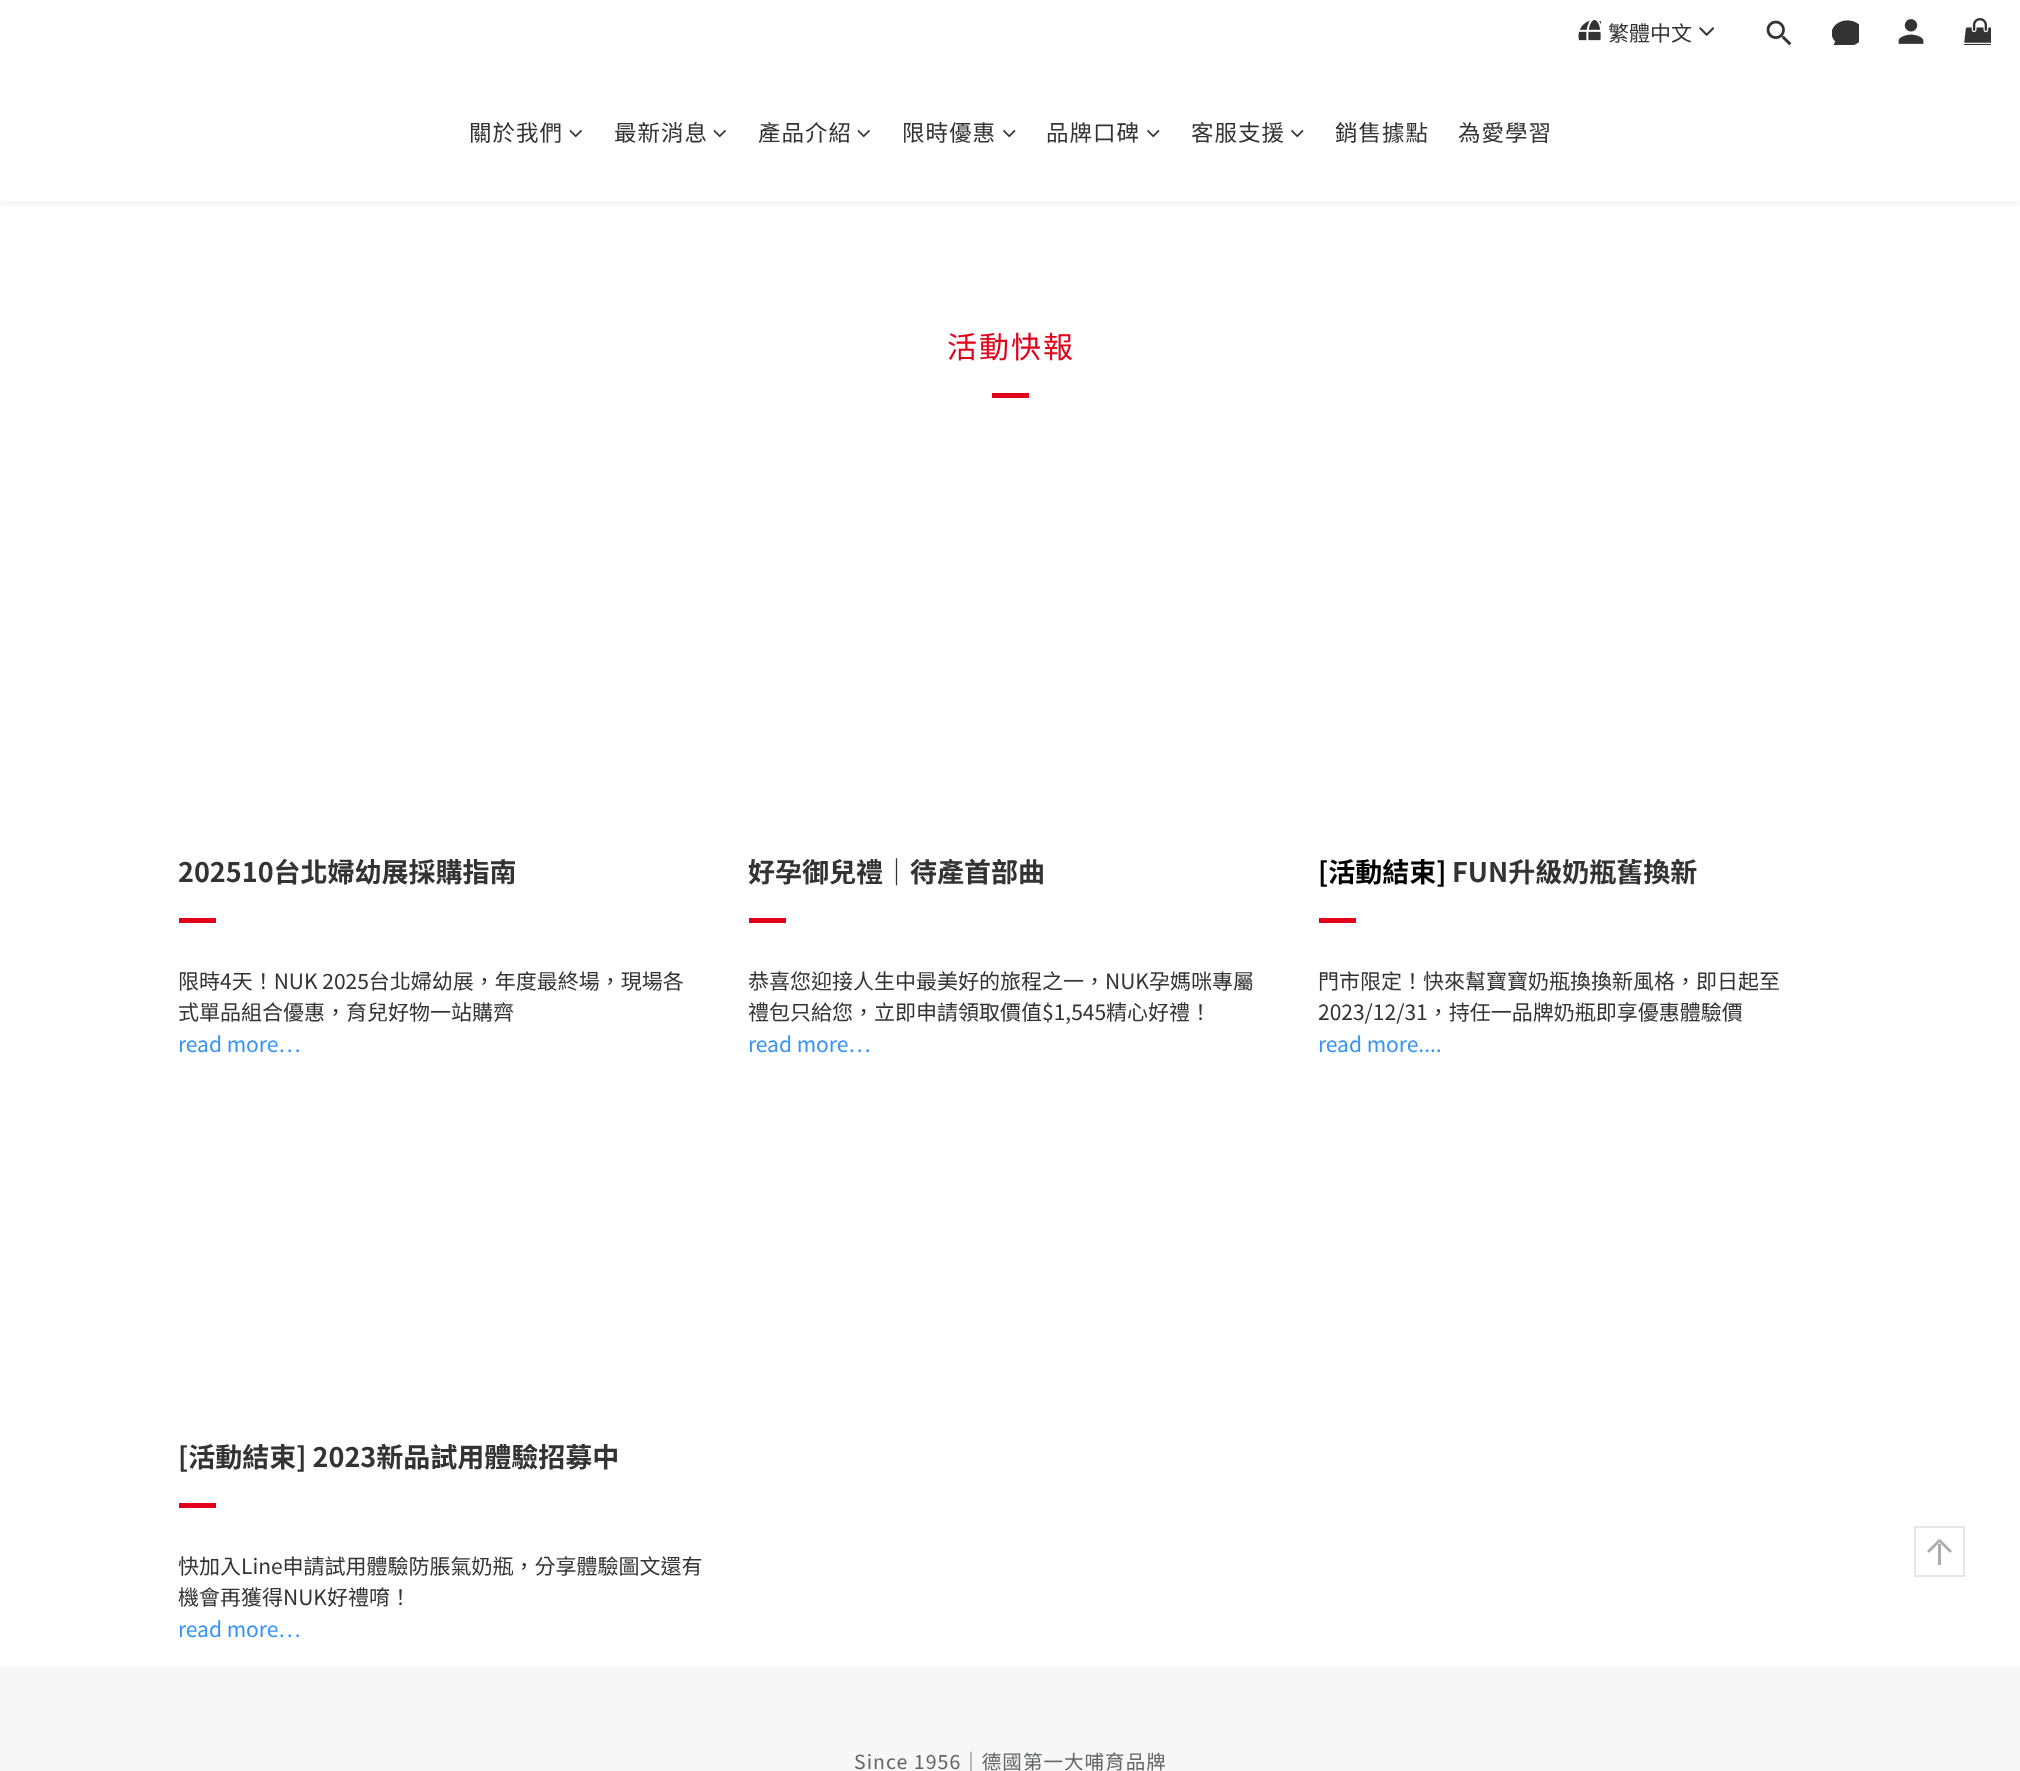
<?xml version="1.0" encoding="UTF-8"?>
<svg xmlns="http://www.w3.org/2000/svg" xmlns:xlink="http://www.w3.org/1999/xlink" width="2020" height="1771">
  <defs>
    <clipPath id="clip1"><rect x="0" y="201" width="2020" height="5" /></clipPath>
  </defs>
  <rect width="100%" height="100%" fill="#ffffff" />
  <g clip-path="url(#clip1)">
    <rect y="3" width="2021" height="201" fill="#000000" fill-opacity="0.06" filter="blur(4.5px)" />
  </g>
  <image x="1578" y="20" width="23" height="21" xlink:href="image1.png" />
  <image x="1699" y="27" width="16" height="9" xlink:href="image2.png" />
  <image x="1766" y="20" width="26" height="26" xlink:href="image3.png" />
  <image x="1832" y="20" width="27" height="25" xlink:href="image4.png" />
  <image x="1898" y="19" width="26" height="25" xlink:href="image5.png" />
  <image x="1964" y="18" width="27" height="27" xlink:href="image6.png" />
  <image x="569" y="130" width="13" height="8" xlink:href="image7.png" />
  <image x="713" y="130" width="13" height="8" xlink:href="image7.png" />
  <image x="857" y="130" width="13" height="8" xlink:href="image7.png" />
  <image x="1003" y="130" width="13" height="8" xlink:href="image8.png" />
  <image x="1147" y="130" width="13" height="8" xlink:href="image8.png" />
  <image x="1291" y="130" width="13" height="8" xlink:href="image8.png" />
  <rect x="992" y="393" width="37" height="5" fill="#e2001a" />
  <rect x="179" y="918" width="37" height="5" fill="#e2001a" />
  <rect x="749" y="918" width="37" height="5" fill="#e2001a" />
  <rect x="1319" y="918" width="37" height="5" fill="#e2001a" />
  <rect x="179" y="1503" width="37" height="5" fill="#e2001a" />
  <rect x="1915" y="1527" width="49" height="49" fill="none" stroke="#e6e6e6" stroke-width="2" />
  <path d="M 1939.5 1538.5 l 12.5 12.5 l -2 2 l -10.5 -10.5 z" fill="#adadad" />
  <path d="M 1927 1551 l 12.5 -12.5 v 4 l -10.5 10.5 z" fill="#999999" fill-opacity="0.8" />
  <rect x="1938" y="1544" width="3" height="21" fill="#adadad" />
  <rect y="1667" width="2020" height="104" fill="#f7f7f7" />
  <text x="1608" y="41" style="font-family: Noto Sans TC; font-size: 21px; fill: #333333">繁體中文</text>
  <text x="469" y="141" style="font-family: Noto Sans TC; font-size: 22.5px; letter-spacing: 1px; fill: #333333">關於我們</text>
  <text x="614" y="141" style="font-family: Noto Sans TC; font-size: 22.5px; letter-spacing: 1px; fill: #333333">最新消息</text>
  <text x="758" y="141" style="font-family: Noto Sans TC; font-size: 22.5px; letter-spacing: 1px; fill: #333333">產品介紹</text>
  <text x="902" y="141" style="font-family: Noto Sans TC; font-size: 22.5px; letter-spacing: 1px; fill: #333333">限時優惠</text>
  <text x="1046" y="141" style="font-family: Noto Sans TC; font-size: 22.5px; letter-spacing: 1px; fill: #333333">品牌口碑</text>
  <text x="1191" y="141" style="font-family: Noto Sans TC; font-size: 22.5px; letter-spacing: 1px; fill: #333333">客服支援</text>
  <text x="1335" y="141" style="font-family: Noto Sans TC; font-size: 22.5px; letter-spacing: 1px; fill: #333333">銷售據點</text>
  <text x="1458" y="141" style="font-family: Noto Sans TC; font-size: 22.5px; letter-spacing: 1px; fill: #333333">為愛學習</text>
  <text x="947" y="358" style="font-family: Noto Sans TC; font-size: 30px; letter-spacing: 2px; fill: #e2001a">活動快報</text>
  <text x="178" y="882" style="font-family: Noto Sans TC; font-size: 27px; font-weight: bold; fill: #333333">202510台北婦幼展採購指南</text>
  <text x="178" y="989" style="font-family: Noto Sans TC; font-size: 21px; fill: #333333">限時4天！NUK 2025台北婦幼展，年度最終場，現場各</text>
  <text x="178" y="1020" style="font-family: Noto Sans TC; font-size: 21px; fill: #333333">式單品組合優惠，育兒好物一站購齊</text>
  <text x="178" y="1052" style="font-family: Noto Sans TC; font-size: 21px; fill: #3493fb">read more…</text>
  <text x="748" y="882" style="font-family: Noto Sans TC; font-size: 27px; font-weight: bold; fill: #333333">好孕御兒禮｜待產首部曲</text>
  <text x="748" y="989" style="font-family: Noto Sans TC; font-size: 21px; fill: #333333">恭喜您迎接人生中最美好的旅程之一，NUK孕媽咪專屬</text>
  <text x="748" y="1020" style="font-family: Noto Sans TC; font-size: 21px; fill: #333333">禮包只給您，立即申請領取價值$1,545精心好禮！</text>
  <text x="748" y="1052" style="font-family: Noto Sans TC; font-size: 21px; fill: #3493fb">read more…</text>
  <text x="1318" y="882" style="font-family: Noto Sans TC; font-size: 27px; font-weight: bold; fill: #000000">[活動結束]</text>
  <text x="1452" y="882" style="font-family: Noto Sans TC; font-size: 27px; font-weight: bold; fill: #333333">FUN升級奶瓶舊換新</text>
  <text x="1318" y="989" style="font-family: Noto Sans TC; font-size: 21px; fill: #333333">門市限定！快來幫寶寶奶瓶換換新風格，即日起至</text>
  <text x="1318" y="1020" style="font-family: Noto Sans TC; font-size: 21px; fill: #333333">2023/12/31，持任一品牌奶瓶即享優惠體驗價</text>
  <text x="1318" y="1052" style="font-family: Noto Sans TC; font-size: 21px; fill: #3493fb">read more....</text>
  <text x="178" y="1467" style="font-family: Noto Sans TC; font-size: 27px; font-weight: bold; fill: #333333">[活動結束] 2023新品試用體驗招募中</text>
  <text x="178" y="1574" style="font-family: Noto Sans TC; font-size: 21px; fill: #333333">快加入Line申請試用體驗防脹氣奶瓶，分享體驗圖文還有</text>
  <text x="178" y="1605" style="font-family: Noto Sans TC; font-size: 21px; fill: #333333">機會再獲得NUK好禮唷！</text>
  <text x="178" y="1637" style="font-family: Noto Sans TC; font-size: 21px; fill: #3493fb">read more…</text>
  <text x="854" y="1769" style="font-family: Noto Sans TC; font-size: 19.5px; letter-spacing: 1.05px; fill: #646567">Since 1956｜德國第一大哺育品牌</text>
</svg>
